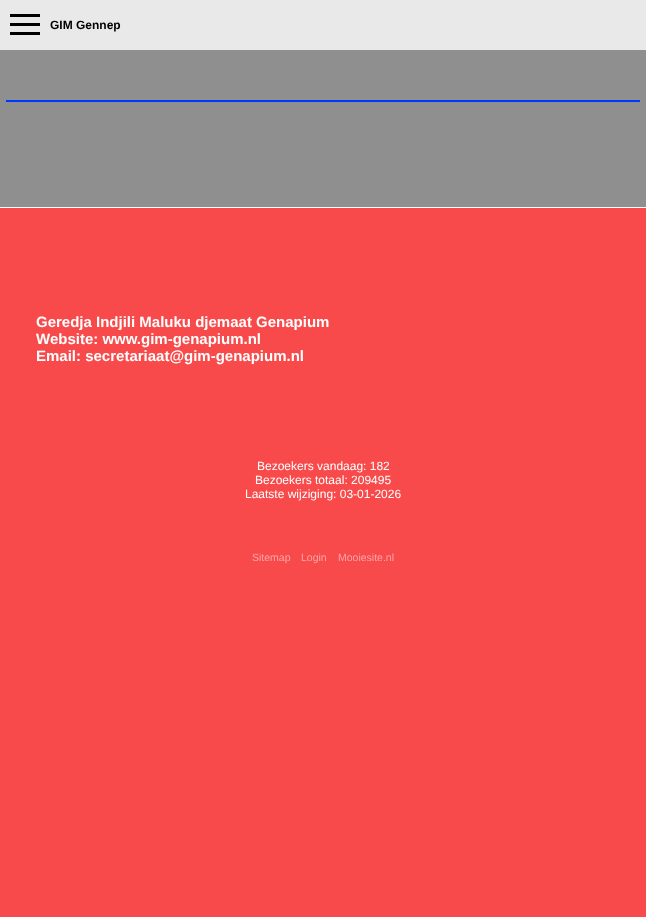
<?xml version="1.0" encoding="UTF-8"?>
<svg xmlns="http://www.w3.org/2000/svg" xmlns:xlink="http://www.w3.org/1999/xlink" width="646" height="917">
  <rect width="100%" height="100%" fill="#f84a4a" />
  <rect width="646" height="50" fill="#e9e9e9" />
  <rect x="10" y="14" width="30" height="3" fill="#000000" />
  <rect x="10" y="23" width="30" height="3" fill="#000000" />
  <rect x="10" y="32" width="30" height="3" fill="#000000" />
  <rect y="50" width="646" height="157" fill="#8f8f8f" />
  <rect x="6" y="100" width="634" height="2" fill="#0037fd" />
  <rect y="207" width="646" height="1" fill="#ffffff" />
  <text x="50" y="29" style="font-family: Liberation Sans; font-size: 12px; font-weight: bold; fill: #000000">GIM Gennep</text>
  <text x="36" y="327" style="font-family: Liberation Sans; font-size: 15px; font-weight: bold; fill: #ffffff">Geredja Indjili Maluku djemaat Genapium</text>
  <text x="36" y="344" style="font-family: Liberation Sans; font-size: 15px; font-weight: bold; fill: #ffffff">Website: www.gim-genapium.nl</text>
  <text x="36" y="361" style="font-family: Liberation Sans; font-size: 15px; font-weight: bold; fill: #ffffff">Email: secretariaat@gim-genapium.nl</text>
  <text x="257" y="470" style="font-family: Liberation Sans; font-size: 12px; fill: #ffffff">Bezoekers vandaag: 182</text>
  <text x="255" y="484" style="font-family: Liberation Sans; font-size: 12px; fill: #ffffff">Bezoekers totaal: 209495</text>
  <text x="245" y="498" style="font-family: Liberation Sans; font-size: 12px; fill: #ffffff">Laatste wijziging: 03-01-2026</text>
  <text x="252" y="561" style="font-family: Liberation Sans; font-size: 10.5px; fill: #fca5a5">Sitemap</text>
  <text x="301" y="561" style="font-family: Liberation Sans; font-size: 10.5px; fill: #fca5a5">Login</text>
  <text x="338" y="561" style="font-family: Liberation Sans; font-size: 10.5px; fill: #fca5a5">Mooiesite.nl</text>
</svg>
